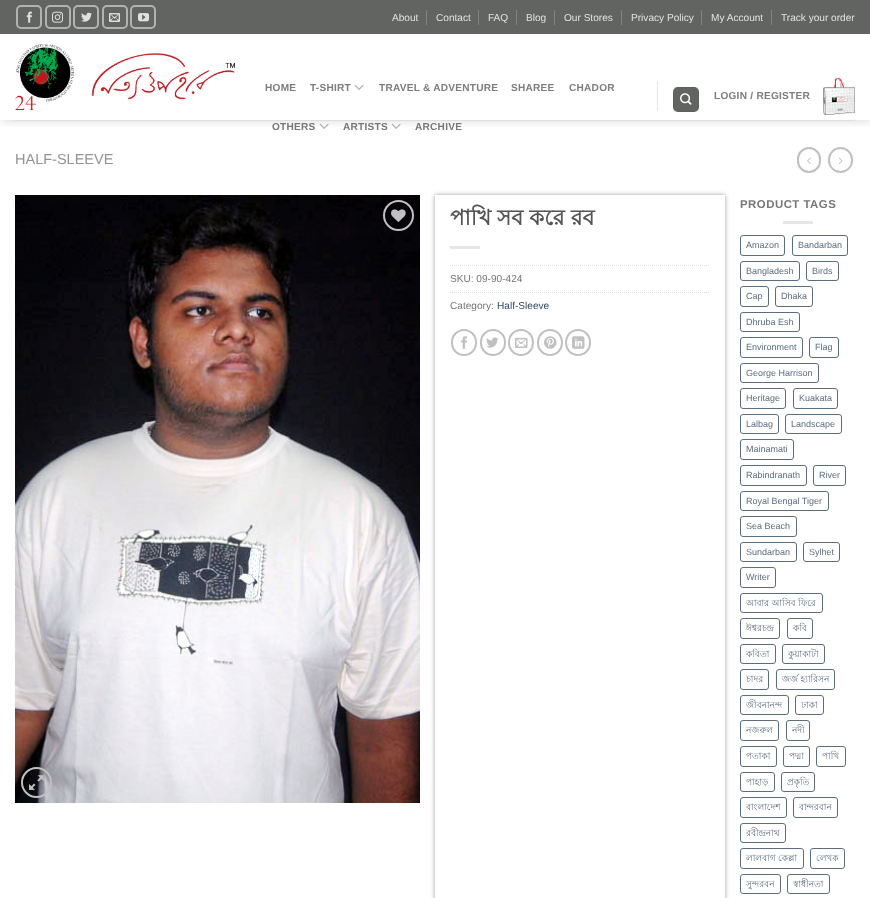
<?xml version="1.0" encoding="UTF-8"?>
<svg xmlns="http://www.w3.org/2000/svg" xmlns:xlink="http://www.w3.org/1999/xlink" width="870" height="898">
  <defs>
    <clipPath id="clip1"><rect x="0" y="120" width="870" height="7" /></clipPath>
    <clipPath id="clip2"><path d="M 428 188 h 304 v 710 h -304 z m 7 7 h 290 v 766 h -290 z" clip-rule="evenodd" /></clipPath>
  </defs>
  <rect width="100%" height="100%" fill="#ffffff" />
  <g clip-path="url(#clip1)">
    <rect x="1" y="1" width="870" height="120" fill="#000000" fill-opacity="0.15" filter="blur(5px)" />
  </g>
  <rect width="870" height="34" fill="#626462" />
  <rect x="17" y="6" width="24" height="22" rx="4" fill="none" stroke="#b1b2b1" stroke-width="2" />
  <image x="26" y="11" width="6" height="12" xlink:href="image1.png" />
  <rect x="46" y="6" width="24" height="22" rx="4" fill="none" stroke="#b1b2b1" stroke-width="2" />
  <image x="52" y="11" width="11" height="12" xlink:href="image2.png" />
  <rect x="74" y="6" width="24" height="22" rx="4" fill="none" stroke="#b1b2b1" stroke-width="2" />
  <image x="81" y="12" width="11" height="10" xlink:href="image3.png" />
  <rect x="103" y="6" width="24" height="22" rx="4" fill="none" stroke="#b1b2b1" stroke-width="2" />
  <image x="109" y="13" width="12" height="9" xlink:href="image4.png" />
  <rect x="131" y="6" width="24" height="22" rx="4" fill="none" stroke="#b1b2b1" stroke-width="2" />
  <image x="138" y="13" width="12" height="9" xlink:href="image5.png" />
  <rect x="426" y="10" width="1" height="15" fill="#818381" />
  <rect x="478" y="10" width="1" height="15" fill="#818381" />
  <rect x="516" y="10" width="1" height="15" fill="#818381" />
  <rect x="554" y="10" width="1" height="15" fill="#818381" />
  <rect x="621" y="10" width="1" height="15" fill="#818381" />
  <rect x="701" y="10" width="1" height="15" fill="#818381" />
  <rect x="771" y="10" width="1" height="15" fill="#818381" />
  <image x="15" y="44" width="220" height="66" xlink:href="image6.png" />
  <image x="354" y="84" width="10" height="6" xlink:href="image7.png" />
  <image x="319" y="123" width="10" height="6" xlink:href="image8.png" />
  <image x="391" y="123" width="10" height="6" xlink:href="image8.png" />
  <rect x="657" y="81" width="1" height="30" fill="#e6e6e6" />
  <rect x="673" y="87" width="26" height="25" rx="5" fill="#626462" />
  <rect x="673.5" y="87.5" width="25" height="24" fill="none" stroke="#000000" stroke-opacity="0.05" />
  <image x="680" y="93" width="12" height="12" xlink:href="image9.png" />
  <image x="823" y="78" width="32" height="37" xlink:href="image10.png" />
  <rect x="15" y="120" width="840" height="1" fill="#dfdfdf" />
  <rect x="798" y="148" width="22" height="24" rx="11" fill="none" stroke="#c0c0c0" stroke-width="2" />
  <image x="807" y="157" width="4" height="7" xlink:href="image11.png" />
  <rect x="829" y="148" width="23" height="24" rx="11.5" fill="none" stroke="#c0c0c0" stroke-width="2" />
  <image x="838" y="157" width="5" height="7" xlink:href="image12.png" />
  <image x="15" y="195" width="405" height="608" xlink:href="image13.png" />
  <circle cx="398.5" cy="215.5" r="14.5" fill="none" stroke="#c0c0c0" stroke-width="2" />
  <image x="391" y="209" width="15" height="13" xlink:href="image14.png" />
  <circle cx="36.5" cy="782.5" r="14.5" fill="none" stroke="#c0c0c0" stroke-width="2" />
  <image x="29" y="775" width="15" height="15" xlink:href="image15.png" />
  <g clip-path="url(#clip2)">
    <rect x="435" y="195" width="290" height="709" fill="#000000" fill-opacity="0.4" filter="blur(2px)" />
  </g>
  <rect x="450" y="246" width="30" height="3" fill="#e6e6e6" />
  <path d="M 450 265.5 h 260" fill="none" stroke="#dddddd" stroke-dasharray="1 1" />
  <path d="M 450 292.5 h 260" fill="none" stroke="#dddddd" stroke-dasharray="1 1" />
  <rect x="452" y="330" width="24" height="25" rx="12" fill="none" stroke="#c0c0c0" stroke-width="2" />
  <image x="461" y="336" width="6" height="13" xlink:href="image16.png" />
  <rect x="481" y="330" width="24" height="25" rx="12" fill="none" stroke="#c0c0c0" stroke-width="2" />
  <image x="486" y="337" width="13" height="11" xlink:href="image17.png" />
  <rect x="509" y="330" width="24" height="25" rx="12" fill="none" stroke="#c0c0c0" stroke-width="2" />
  <image x="515" y="337" width="13" height="11" xlink:href="image18.png" />
  <rect x="538" y="330" width="24" height="25" rx="12" fill="none" stroke="#c0c0c0" stroke-width="2" />
  <image x="544" y="336" width="13" height="13" xlink:href="image19.png" />
  <rect x="566" y="330" width="24" height="25" rx="12" fill="none" stroke="#c0c0c0" stroke-width="2" />
  <image x="572" y="336" width="13" height="13" xlink:href="image20.png" />
  <rect x="783" y="221" width="30" height="3" fill="#e6e6e6" />
  <rect x="740.5" y="235.5" width="44" height="20" rx="2.5" fill="none" stroke="#5c6d81" />
  <rect x="792.5" y="235.5" width="55" height="20" rx="2.5" fill="none" stroke="#5c6d81" />
  <rect x="740.5" y="261.5" width="59" height="19" rx="2.5" fill="none" stroke="#5c6d81" />
  <rect x="806.5" y="261.5" width="32" height="19" rx="2.5" fill="none" stroke="#5c6d81" />
  <rect x="740.5" y="286.5" width="28" height="20" rx="2.5" fill="none" stroke="#5c6d81" />
  <rect x="775.5" y="286.5" width="37" height="20" rx="2.5" fill="none" stroke="#5c6d81" />
  <rect x="740.5" y="312.5" width="59" height="19" rx="2.5" fill="none" stroke="#5c6d81" />
  <rect x="740.5" y="337.5" width="62" height="20" rx="2.5" fill="none" stroke="#5c6d81" />
  <rect x="809.5" y="337.5" width="29" height="20" rx="2.5" fill="none" stroke="#5c6d81" />
  <rect x="740.5" y="363.5" width="78" height="19" rx="2.5" fill="none" stroke="#5c6d81" />
  <rect x="740.5" y="388.5" width="45" height="20" rx="2.5" fill="none" stroke="#5c6d81" />
  <rect x="793.5" y="388.5" width="44" height="20" rx="2.5" fill="none" stroke="#5c6d81" />
  <rect x="740.5" y="414.5" width="38" height="19" rx="2.5" fill="none" stroke="#5c6d81" />
  <rect x="785.5" y="414.5" width="56" height="19" rx="2.5" fill="none" stroke="#5c6d81" />
  <rect x="740.5" y="439.5" width="53" height="20" rx="2.5" fill="none" stroke="#5c6d81" />
  <rect x="740.5" y="465.5" width="66" height="20" rx="2.5" fill="none" stroke="#5c6d81" />
  <rect x="813.5" y="465.5" width="32" height="20" rx="2.5" fill="none" stroke="#5c6d81" />
  <rect x="740.5" y="491.5" width="88" height="19" rx="2.5" fill="none" stroke="#5c6d81" />
  <rect x="740.5" y="516.5" width="56" height="20" rx="2.5" fill="none" stroke="#5c6d81" />
  <rect x="740.5" y="542.5" width="56" height="19" rx="2.5" fill="none" stroke="#5c6d81" />
  <rect x="803.5" y="542.5" width="36" height="19" rx="2.5" fill="none" stroke="#5c6d81" />
  <rect x="740.5" y="567.5" width="35" height="20" rx="2.5" fill="none" stroke="#5c6d81" />
  <rect x="740.5" y="593.5" width="82" height="19" rx="2.5" fill="none" stroke="#5c6d81" />
  <rect x="740.5" y="618.5" width="39" height="20" rx="2.5" fill="none" stroke="#5c6d81" />
  <rect x="787.5" y="618.5" width="25" height="20" rx="2.5" fill="none" stroke="#5c6d81" />
  <rect x="740.5" y="644.5" width="35" height="19" rx="2.5" fill="none" stroke="#5c6d81" />
  <rect x="782.5" y="644.5" width="42" height="19" rx="2.5" fill="none" stroke="#5c6d81" />
  <rect x="740.5" y="669.5" width="28" height="20" rx="2.5" fill="none" stroke="#5c6d81" />
  <rect x="776.5" y="669.5" width="58" height="20" rx="2.5" fill="none" stroke="#5c6d81" />
  <rect x="740.5" y="695.5" width="48" height="19" rx="2.5" fill="none" stroke="#5c6d81" />
  <rect x="795.5" y="695.5" width="28" height="19" rx="2.5" fill="none" stroke="#5c6d81" />
  <rect x="740.5" y="720.5" width="38" height="20" rx="2.5" fill="none" stroke="#5c6d81" />
  <rect x="786.5" y="720.5" width="23" height="20" rx="2.5" fill="none" stroke="#5c6d81" />
  <rect x="740.5" y="746.5" width="36" height="20" rx="2.5" fill="none" stroke="#5c6d81" />
  <rect x="783.5" y="746.5" width="26" height="20" rx="2.5" fill="none" stroke="#5c6d81" />
  <rect x="816.5" y="746.5" width="29" height="20" rx="2.5" fill="none" stroke="#5c6d81" />
  <rect x="740.5" y="772.5" width="34" height="19" rx="2.5" fill="none" stroke="#5c6d81" />
  <rect x="781.5" y="772.5" width="33" height="19" rx="2.5" fill="none" stroke="#5c6d81" />
  <rect x="740.5" y="797.5" width="46" height="20" rx="2.5" fill="none" stroke="#5c6d81" />
  <rect x="793.5" y="797.5" width="44" height="20" rx="2.5" fill="none" stroke="#5c6d81" />
  <rect x="740.5" y="823.5" width="45" height="19" rx="2.5" fill="none" stroke="#5c6d81" />
  <rect x="740.5" y="848.5" width="63" height="20" rx="2.5" fill="none" stroke="#5c6d81" />
  <rect x="810.5" y="848.5" width="34" height="20" rx="2.5" fill="none" stroke="#5c6d81" />
  <rect x="740.5" y="874.5" width="40" height="19" rx="2.5" fill="none" stroke="#5c6d81" />
  <rect x="787.5" y="874.5" width="42" height="19" rx="2.5" fill="none" stroke="#5c6d81" />
  <text x="392" y="21" style="font-family: Liberation Sans; font-size: 10.1px; fill: #e0e0e0">About</text>
  <text x="436" y="21" style="font-family: Liberation Sans; font-size: 10.1px; fill: #e0e0e0">Contact</text>
  <text x="488" y="21" style="font-family: Liberation Sans; font-size: 10.1px; fill: #e0e0e0">FAQ</text>
  <text x="526" y="21" style="font-family: Liberation Sans; font-size: 10.1px; fill: #e0e0e0">Blog</text>
  <text x="564" y="21" style="font-family: Liberation Sans; font-size: 10.1px; fill: #e0e0e0">Our Stores</text>
  <text x="631" y="21" style="font-family: Liberation Sans; font-size: 10.1px; fill: #e0e0e0">Privacy Policy</text>
  <text x="711" y="21" style="font-family: Liberation Sans; font-size: 10.1px; fill: #e0e0e0">My Account</text>
  <text x="781" y="21" style="font-family: Liberation Sans; font-size: 10.1px; fill: #e0e0e0">Track your order</text>
  <text x="265" y="91" style="font-family: Liberation Sans; font-size: 10.1px; font-weight: bold; letter-spacing: 0.25px; fill: #7d7d7d">HOME</text>
  <text x="310" y="91" style="font-family: Liberation Sans; font-size: 10.1px; font-weight: bold; letter-spacing: 0.25px; fill: #7d7d7d">T-SHIRT</text>
  <text x="379" y="91" style="font-family: Liberation Sans; font-size: 10.1px; font-weight: bold; letter-spacing: 0.25px; fill: #7d7d7d">TRAVEL &amp; ADVENTURE</text>
  <text x="511" y="91" style="font-family: Liberation Sans; font-size: 10.1px; font-weight: bold; letter-spacing: 0.25px; fill: #7d7d7d">SHAREE</text>
  <text x="569" y="91" style="font-family: Liberation Sans; font-size: 10.1px; font-weight: bold; letter-spacing: 0.25px; fill: #7d7d7d">CHADOR</text>
  <text x="272" y="130" style="font-family: Liberation Sans; font-size: 10.1px; font-weight: bold; letter-spacing: 0.25px; fill: #777777">OTHERS</text>
  <text x="343" y="130" style="font-family: Liberation Sans; font-size: 10.1px; font-weight: bold; letter-spacing: 0.25px; fill: #777777">ARTISTS</text>
  <text x="415" y="130" style="font-family: Liberation Sans; font-size: 10.1px; font-weight: bold; letter-spacing: 0.25px; fill: #777777">ARCHIVE</text>
  <text x="714" y="99" style="font-family: Liberation Sans; font-size: 10.1px; font-weight: bold; letter-spacing: 0.25px; fill: #7d7d7d">LOGIN / REGISTER</text>
  <text x="15" y="164" style="font-family: Liberation Sans; font-size: 14.5px; fill: #949494">HALF-SLEEVE</text>
  <text x="450" y="225" style="font-family: Lohit Bengali; font-size: 21.5px; font-weight: bold; fill: #555555">পাখি সব করে রব</text>
  <text x="450" y="282" style="font-family: Liberation Sans; font-size: 10.1px; fill: #777777">SKU: 09-90-424</text>
  <text x="450" y="309" style="font-family: Liberation Sans; font-size: 10.1px; fill: #777777">Category:</text>
  <text x="497" y="309" style="font-family: Liberation Sans; font-size: 10.1px; fill: #334862">Half-Sleeve</text>
  <text x="740" y="208" style="font-family: Liberation Sans; font-size: 11.4px; font-weight: bold; letter-spacing: 0.5px; fill: #777777">PRODUCT TAGS</text>
  <text x="746" y="248" style="font-family: Liberation Sans; font-size: 9px; fill: #5c6d81">Amazon</text>
  <text x="798" y="248" style="font-family: Liberation Sans; font-size: 9px; fill: #5c6d81">Bandarban</text>
  <text x="746" y="274" style="font-family: Liberation Sans; font-size: 9px; fill: #5c6d81">Bangladesh</text>
  <text x="812" y="274" style="font-family: Liberation Sans; font-size: 9px; fill: #5c6d81">Birds</text>
  <text x="746" y="299" style="font-family: Liberation Sans; font-size: 9px; fill: #5c6d81">Cap</text>
  <text x="781" y="299" style="font-family: Liberation Sans; font-size: 9px; fill: #5c6d81">Dhaka</text>
  <text x="746" y="325" style="font-family: Liberation Sans; font-size: 9px; fill: #5c6d81">Dhruba Esh</text>
  <text x="746" y="350" style="font-family: Liberation Sans; font-size: 9px; fill: #5c6d81">Environment</text>
  <text x="815" y="350" style="font-family: Liberation Sans; font-size: 9px; fill: #5c6d81">Flag</text>
  <text x="746" y="376" style="font-family: Liberation Sans; font-size: 9px; fill: #5c6d81">George Harrison</text>
  <text x="746" y="401" style="font-family: Liberation Sans; font-size: 9px; fill: #5c6d81">Heritage</text>
  <text x="799" y="401" style="font-family: Liberation Sans; font-size: 9px; fill: #5c6d81">Kuakata</text>
  <text x="746" y="427" style="font-family: Liberation Sans; font-size: 9px; fill: #5c6d81">Lalbag</text>
  <text x="791" y="427" style="font-family: Liberation Sans; font-size: 9px; fill: #5c6d81">Landscape</text>
  <text x="746" y="452" style="font-family: Liberation Sans; font-size: 9px; fill: #5c6d81">Mainamati</text>
  <text x="746" y="478" style="font-family: Liberation Sans; font-size: 9px; fill: #5c6d81">Rabindranath</text>
  <text x="819" y="478" style="font-family: Liberation Sans; font-size: 9px; fill: #5c6d81">River</text>
  <text x="746" y="504" style="font-family: Liberation Sans; font-size: 9px; fill: #5c6d81">Royal Bengal Tiger</text>
  <text x="746" y="529" style="font-family: Liberation Sans; font-size: 9px; fill: #5c6d81">Sea Beach</text>
  <text x="746" y="555" style="font-family: Liberation Sans; font-size: 9px; fill: #5c6d81">Sundarban</text>
  <text x="809" y="555" style="font-family: Liberation Sans; font-size: 9px; fill: #5c6d81">Sylhet</text>
  <text x="746" y="580" style="font-family: Liberation Sans; font-size: 9px; fill: #5c6d81">Writer</text>
  <text x="746" y="606" style="font-family: Lohit Bengali; font-size: 9px; fill: #5c6d81">আবার আসিব ফিরে</text>
  <text x="746" y="631" style="font-family: Lohit Bengali; font-size: 9px; fill: #5c6d81">ঈশ্বরচন্দ্র</text>
  <text x="793" y="631" style="font-family: Lohit Bengali; font-size: 9px; fill: #5c6d81">কবি</text>
  <text x="746" y="657" style="font-family: Lohit Bengali; font-size: 9px; fill: #5c6d81">কবিতা</text>
  <text x="788" y="657" style="font-family: Lohit Bengali; font-size: 9px; fill: #5c6d81">কুয়াকাটা</text>
  <text x="746" y="682" style="font-family: Lohit Bengali; font-size: 9px; fill: #5c6d81">চাদর</text>
  <text x="782" y="682" style="font-family: Lohit Bengali; font-size: 9px; fill: #5c6d81">জর্জ হ্যারিসন</text>
  <text x="746" y="708" style="font-family: Lohit Bengali; font-size: 9px; fill: #5c6d81">জীবনানন্দ</text>
  <text x="801" y="708" style="font-family: Lohit Bengali; font-size: 9px; fill: #5c6d81">ঢাকা</text>
  <text x="746" y="733" style="font-family: Lohit Bengali; font-size: 9px; fill: #5c6d81">নজরুল</text>
  <text x="792" y="733" style="font-family: Lohit Bengali; font-size: 9px; fill: #5c6d81">নদী</text>
  <text x="746" y="759" style="font-family: Lohit Bengali; font-size: 9px; fill: #5c6d81">পতাকা</text>
  <text x="789" y="759" style="font-family: Lohit Bengali; font-size: 9px; fill: #5c6d81">পদ্মা</text>
  <text x="822" y="759" style="font-family: Lohit Bengali; font-size: 9px; fill: #5c6d81">পাখি</text>
  <text x="746" y="785" style="font-family: Lohit Bengali; font-size: 9px; fill: #5c6d81">পাহাড়</text>
  <text x="787" y="785" style="font-family: Lohit Bengali; font-size: 9px; fill: #5c6d81">প্রকৃতি</text>
  <text x="746" y="810" style="font-family: Lohit Bengali; font-size: 9px; fill: #5c6d81">বাংলাদেশ</text>
  <text x="799" y="810" style="font-family: Lohit Bengali; font-size: 9px; fill: #5c6d81">বান্দরবান</text>
  <text x="746" y="836" style="font-family: Lohit Bengali; font-size: 9px; fill: #5c6d81">রবীন্দ্রনাথ</text>
  <text x="746" y="861" style="font-family: Lohit Bengali; font-size: 9px; fill: #5c6d81">লালবাগ কেল্লা</text>
  <text x="816" y="861" style="font-family: Lohit Bengali; font-size: 9px; fill: #5c6d81">লেখক</text>
  <text x="746" y="887" style="font-family: Lohit Bengali; font-size: 9px; fill: #5c6d81">সুন্দরবন</text>
  <text x="793" y="887" style="font-family: Lohit Bengali; font-size: 9px; fill: #5c6d81">স্বাধীনতা</text>
</svg>
